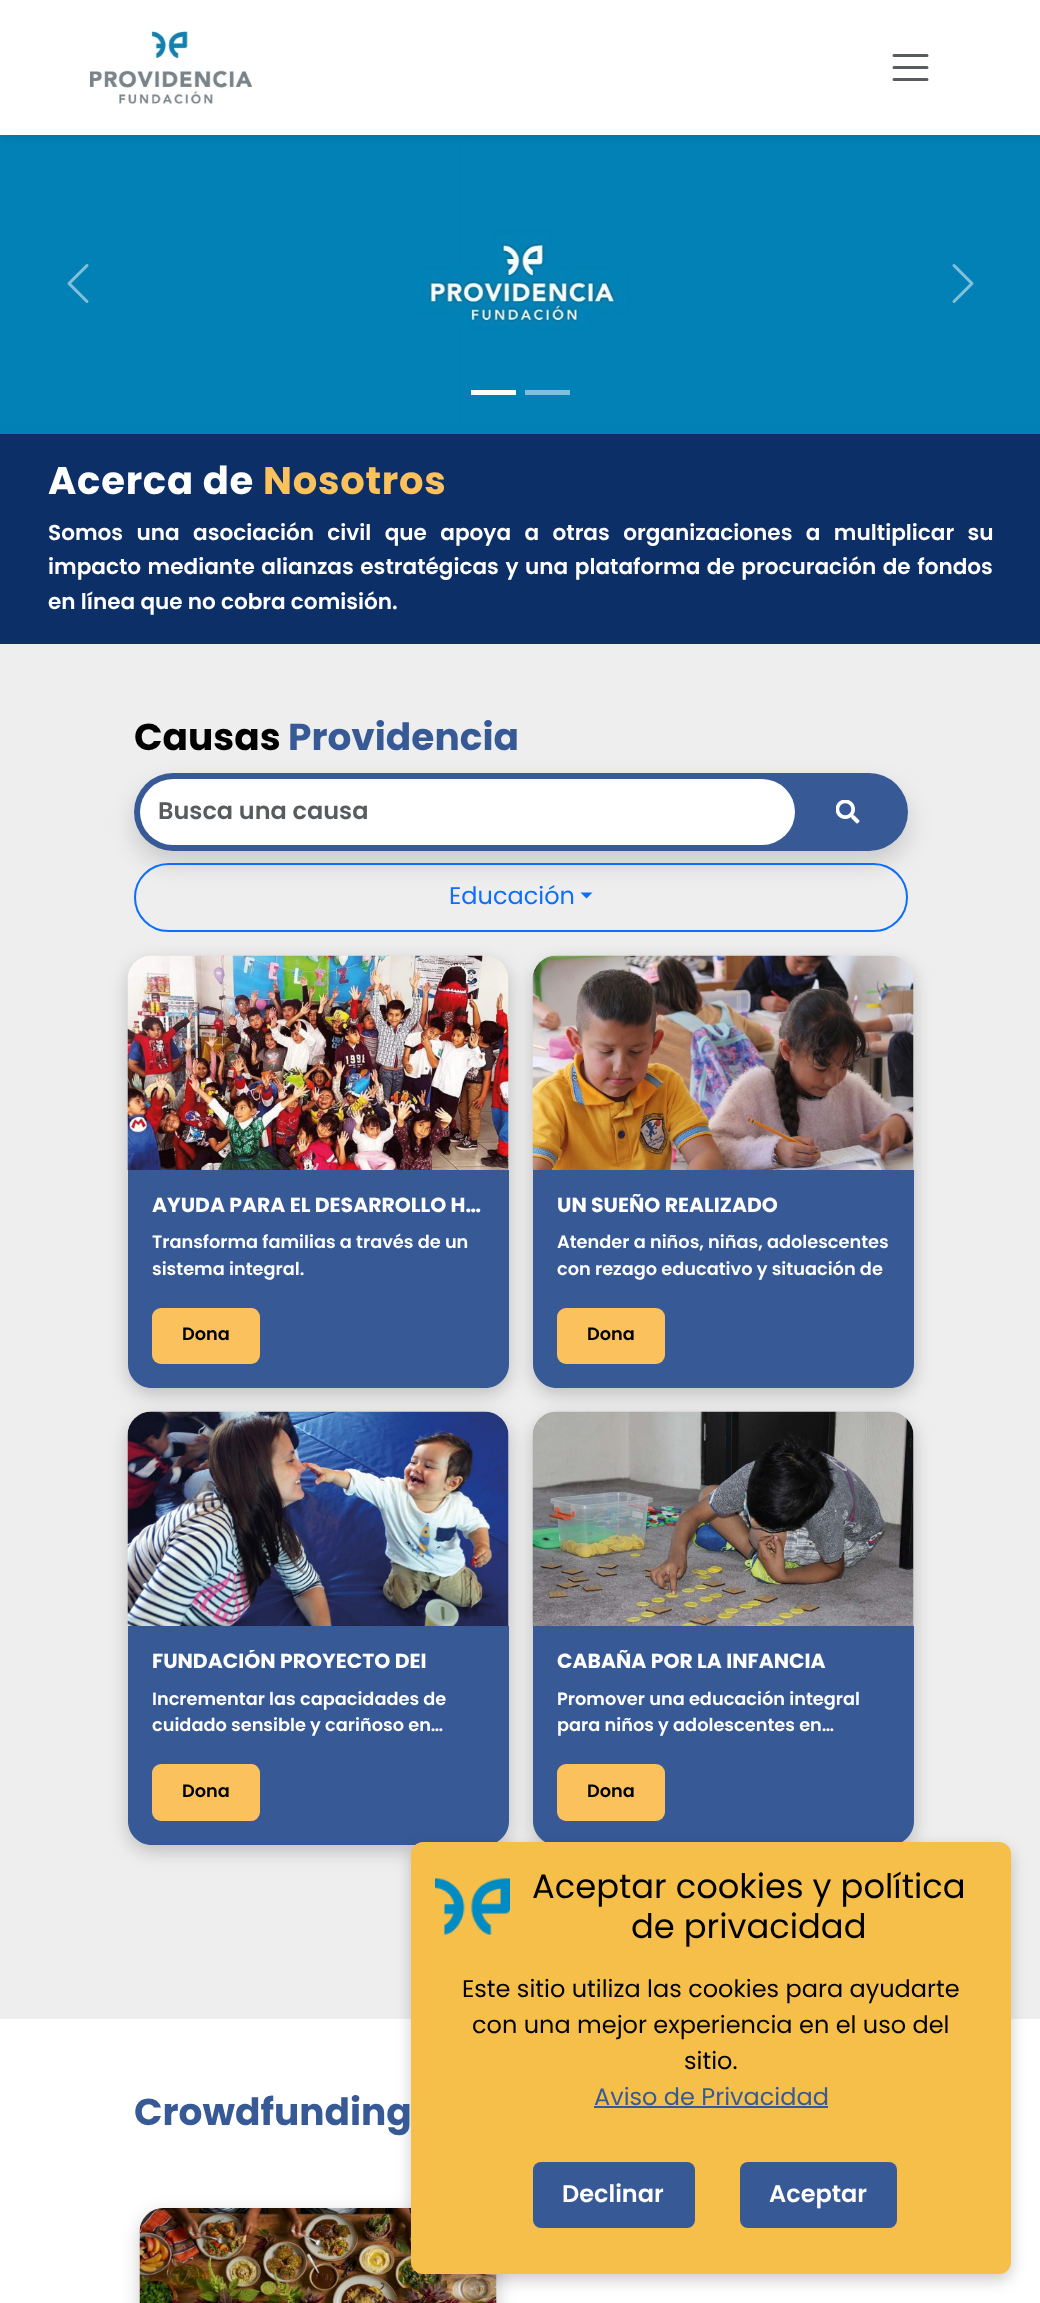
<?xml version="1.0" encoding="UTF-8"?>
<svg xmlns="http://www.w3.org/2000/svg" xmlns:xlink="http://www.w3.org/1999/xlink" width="1040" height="2303">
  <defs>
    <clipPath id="clip1"><rect x="557" y="1194" width="333" height="24" /></clipPath>
    <clipPath id="clip2"><rect x="152" y="1650" width="333" height="24" /></clipPath>
    <clipPath id="clip3"><rect x="557" y="1650" width="333" height="24" /></clipPath>
  </defs>
  <rect width="100%" height="100%" fill="#ffffff" />
  <image x="0" y="135" width="1040" height="299" xlink:href="image2.png" />
  <rect y="3" width="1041" height="135" fill="#000000" fill-opacity="0.07" filter="blur(3px)" />
  <rect width="1040" height="135" fill="#ffffff" />
  <image x="90" y="31" width="162" height="73" xlink:href="image1.png" />
  <path d="M 894 55.5 h 33 m -33 12 h 33 m -33 12 h 33" fill="none" stroke="#595c5f" stroke-width="3" stroke-linecap="round" />
  <image x="67" y="264" width="22" height="39" xlink:href="image3.png" />
  <image x="952" y="264" width="22" height="39" xlink:href="image4.png" />
  <rect x="471" y="390" width="45" height="5" fill="#ffffff" />
  <rect x="525" y="390" width="45" height="5" fill="#81c0db" />
  <rect y="434" width="1040" height="210" fill="#0d2f67" />
  <rect y="644" width="1040" height="1375" fill="#eeeeee" />
  <rect x="134" y="785" width="774" height="78" rx="39" fill="#000000" fill-opacity="0.15" filter="blur(12px)" />
  <rect x="134" y="773" width="774" height="78" rx="39" fill="#375a96" />
  <rect x="140" y="779" width="655" height="66" rx="33" fill="#ffffff" />
  <image x="836" y="800" width="24" height="24" xlink:href="image5.png" />
  <rect x="135" y="864" width="772" height="67" rx="33.5" fill="none" stroke="#0d6efd" stroke-width="2" />
  <path d="M 580.5 892.5 h 12 l -6 6 z" fill="#0d6efd" />
  <rect x="128" y="962" width="381" height="432" rx="24" fill="#000000" fill-opacity="0.2" filter="blur(9px)" />
  <image x="127" y="955" width="382" height="215" xlink:href="image6.png" />
  <path d="M 128 1170 h 381 v 194 c 0 13.5 -10.5 24 -24 24 h -333 c -13.5 0 -24 -10.5 -24 -24 z" fill="#375a96" />
  <rect x="152" y="1308" width="108" height="56" rx="9" fill="#fac15c" />
  <rect x="533" y="962" width="381" height="432" rx="24" fill="#000000" fill-opacity="0.2" filter="blur(9px)" />
  <image x="532" y="955" width="382" height="215" xlink:href="image7.png" />
  <path d="M 533 1170 h 381 v 194 c 0 13.5 -10.5 24 -24 24 h -333 c -13.5 0 -24 -10.5 -24 -24 z" fill="#375a96" />
  <rect x="557" y="1308" width="108" height="56" rx="9" fill="#fac15c" />
  <rect x="128" y="1418" width="381" height="433" rx="24" fill="#000000" fill-opacity="0.2" filter="blur(9px)" />
  <image x="127" y="1411" width="382" height="215" xlink:href="image8.png" />
  <path d="M 128 1626 h 381 v 195 c 0 13.5 -10.5 24 -24 24 h -333 c -13.5 0 -24 -10.5 -24 -24 z" fill="#375a96" />
  <rect x="152" y="1764" width="108" height="57" rx="9" fill="#fac15c" />
  <rect x="533" y="1418" width="381" height="433" rx="24" fill="#000000" fill-opacity="0.2" filter="blur(9px)" />
  <image x="532" y="1411" width="382" height="215" xlink:href="image9.png" />
  <path d="M 533 1626 h 381 v 195 c 0 13.5 -10.5 24 -24 24 h -333 c -13.5 0 -24 -10.5 -24 -24 z" fill="#375a96" />
  <rect x="557" y="1764" width="108" height="57" rx="9" fill="#fac15c" />
  <rect x="140" y="2214" width="357" height="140" rx="24" fill="#000000" fill-opacity="0.2" filter="blur(9px)" />
  <image x="139" y="2208" width="358" height="95" xlink:href="image10.png" />
  <rect x="411" y="1848" width="600" height="432" rx="12" fill="#000000" fill-opacity="0.2" filter="blur(7.5px)" />
  <rect x="411" y="1842" width="600" height="432" rx="12" fill="#f5bf49" />
  <image x="435" y="1878" width="75" height="57" xlink:href="image11.png" />
  <rect x="594" y="2106" width="234" height="2" fill="#375a96" />
  <rect x="533" y="2162" width="162" height="66" rx="8" fill="#375a96" />
  <rect x="740" y="2162" width="157" height="66" rx="8" fill="#375a96" />
  <text x="48" y="494" style="font-family: Poppins; font-size: 38.5px; font-weight: bold; letter-spacing: 0.75px; fill: #ffffff">Acerca de</text>
  <text x="263" y="494" style="font-family: Poppins; font-size: 38.5px; font-weight: bold; letter-spacing: 0.75px; fill: #fac15c">Nosotros</text>
  <text x="48" y="540" word-spacing="8.25" style="font-family: Poppins; font-size: 21.6px; font-weight: 600; fill: #ffffff">Somos una asociación civil que apoya a otras organizaciones a multiplicar su</text>
  <text x="48" y="574" word-spacing="1.4" style="font-family: Poppins; font-size: 21.6px; font-weight: 600; fill: #ffffff">impacto mediante alianzas estratégicas y una plataforma de procuración de fondos</text>
  <text x="48" y="609" style="font-family: Poppins; font-size: 21.6px; font-weight: 600; fill: #ffffff">en línea que no cobra comisión.</text>
  <text x="134" y="750" style="font-family: Poppins; font-size: 37.5px; font-weight: bold; fill: #000000">Causas</text>
  <text x="288" y="750" style="font-family: Poppins; font-size: 37.5px; font-weight: bold; fill: #375a96">Providencia</text>
  <text x="158" y="819" style="font-family: Poppins; font-size: 24px; font-weight: 600; fill: #595c5f">Busca una causa</text>
  <text x="449" y="904" style="font-family: Poppins; font-size: 24px; fill: #0d6efd">Educación</text>
  <text x="152" y="1212" style="font-family: Poppins; font-size: 20.4px; font-weight: bold; fill: #ffffff">AYUDA PARA EL DESARROLLO H…</text>
  <text x="152" y="1248" style="font-family: Poppins; font-size: 17.75px; font-weight: 600; fill: #ffffff">Transforma familias a través de un</text>
  <text x="152" y="1275" style="font-family: Poppins; font-size: 17.75px; font-weight: 600; fill: #ffffff">sistema integral.</text>
  <text x="182" y="1340" style="font-family: Poppins; font-size: 17.75px; font-weight: 600; fill: #000000">Dona</text>
  <g clip-path="url(#clip1)">
    <text x="557" y="1212" style="font-family: Poppins; font-size: 20.4px; font-weight: bold; fill: #ffffff">UN SUEÑO REALIZADO</text>
  </g>
  <text x="557" y="1248" style="font-family: Poppins; font-size: 17.75px; font-weight: 600; fill: #ffffff">Atender a niños, niñas, adolescentes</text>
  <text x="557" y="1275" style="font-family: Poppins; font-size: 17.75px; font-weight: 600; fill: #ffffff">con rezago educativo y situación de</text>
  <text x="587" y="1340" style="font-family: Poppins; font-size: 17.75px; font-weight: 600; fill: #000000">Dona</text>
  <g clip-path="url(#clip2)">
    <text x="152" y="1668" style="font-family: Poppins; font-size: 20.4px; font-weight: bold; fill: #ffffff">FUNDACIÓN PROYECTO DEI</text>
  </g>
  <text x="152" y="1705" style="font-family: Poppins; font-size: 17.75px; font-weight: 600; fill: #ffffff">Incrementar las capacidades de</text>
  <text x="152" y="1731" style="font-family: Poppins; font-size: 17.75px; font-weight: 600; fill: #ffffff">cuidado sensible y cariñoso en…</text>
  <text x="182" y="1797" style="font-family: Poppins; font-size: 17.75px; font-weight: 600; fill: #000000">Dona</text>
  <g clip-path="url(#clip3)">
    <text x="557" y="1668" style="font-family: Poppins; font-size: 20.4px; font-weight: bold; fill: #ffffff">CABAÑA POR LA INFANCIA</text>
  </g>
  <text x="557" y="1705" style="font-family: Poppins; font-size: 17.75px; font-weight: 600; fill: #ffffff">Promover una educación integral</text>
  <text x="557" y="1731" style="font-family: Poppins; font-size: 17.75px; font-weight: 600; fill: #ffffff">para niños y adolescentes en…</text>
  <text x="587" y="1797" style="font-family: Poppins; font-size: 17.75px; font-weight: 600; fill: #000000">Dona</text>
  <text x="134" y="2125" style="font-family: Poppins; font-size: 37.5px; font-weight: bold; fill: #375a96">Crowdfunding</text>
  <text x="532" y="1898" style="font-family: Poppins; font-size: 33.75px; fill: #000000">Aceptar cookies y política</text>
  <text x="631" y="1938" style="font-family: Poppins; font-size: 33.75px; fill: #000000">de privacidad</text>
  <text x="462" y="1997" style="font-family: Poppins; font-size: 24px; fill: #000000">Este sitio utiliza las cookies para ayudarte</text>
  <text x="472" y="2033" style="font-family: Poppins; font-size: 24px; fill: #000000">con una mejor experiencia en el uso del</text>
  <text x="684" y="2069" style="font-family: Poppins; font-size: 24px; fill: #000000">sitio.</text>
  <text x="594" y="2105" style="font-family: Poppins; font-size: 24px; fill: #375a96">Aviso de Privacidad</text>
  <text x="562" y="2202" style="font-family: Poppins; font-size: 24px; font-weight: 600; fill: #ffffff">Declinar</text>
  <text x="769" y="2202" style="font-family: Poppins; font-size: 24px; font-weight: 600; fill: #ffffff">Aceptar</text>
</svg>
